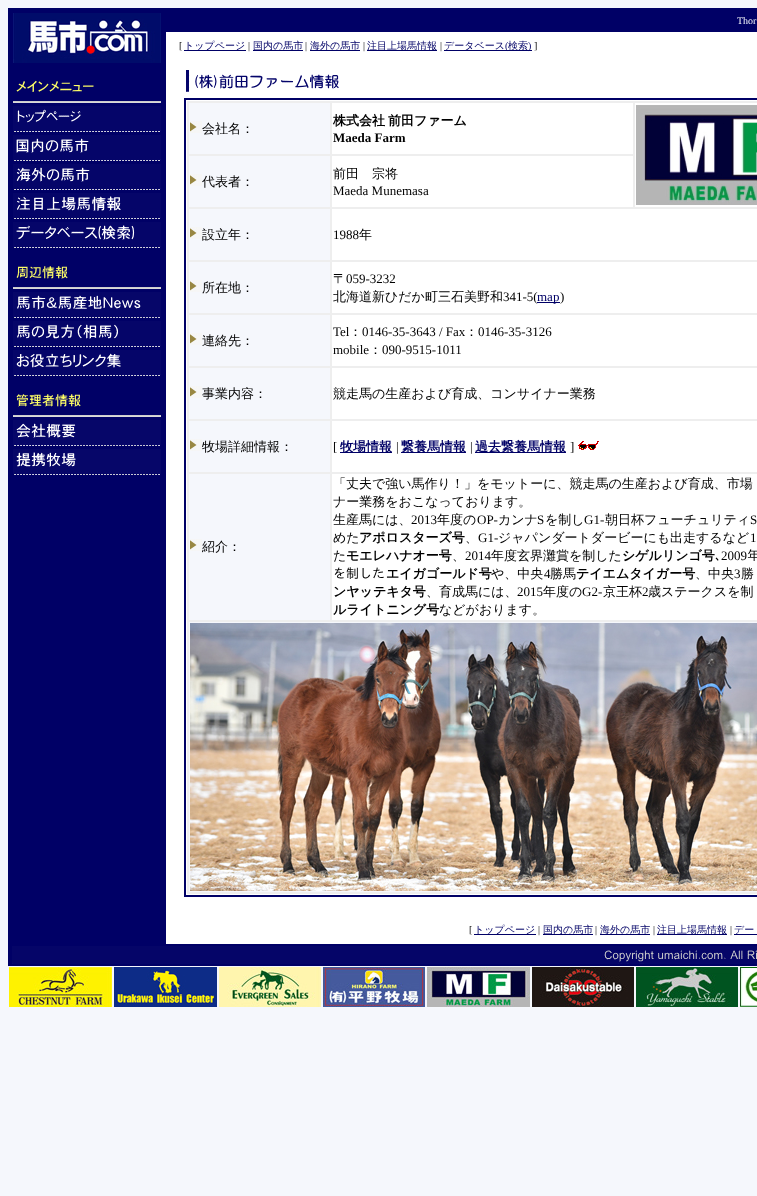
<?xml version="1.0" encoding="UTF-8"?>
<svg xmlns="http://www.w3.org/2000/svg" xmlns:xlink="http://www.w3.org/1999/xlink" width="757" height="1196">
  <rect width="100%" height="100%" fill="#f5f7fc" />
  <rect x="8" y="8" width="749" height="958" fill="#000066" />
  <image x="13" y="13" width="148" height="50" xlink:href="image1.png" />
  <image x="13" y="80" width="148" height="23" xlink:href="image2.png" />
  <image x="13" y="106" width="148" height="26" xlink:href="image3.png" />
  <image x="13" y="135" width="148" height="26" xlink:href="image4.png" />
  <image x="13" y="164" width="148" height="26" xlink:href="image5.png" />
  <image x="13" y="193" width="148" height="26" xlink:href="image6.png" />
  <image x="13" y="222" width="148" height="26" xlink:href="image7.png" />
  <image x="13" y="266" width="148" height="23" xlink:href="image8.png" />
  <image x="13" y="292" width="148" height="26" xlink:href="image9.png" />
  <image x="13" y="321" width="148" height="26" xlink:href="image10.png" />
  <image x="13" y="350" width="148" height="26" xlink:href="image11.png" />
  <image x="13" y="394" width="148" height="23" xlink:href="image12.png" />
  <image x="13" y="420" width="148" height="26" xlink:href="image13.png" />
  <image x="13" y="449" width="148" height="26" xlink:href="image14.png" />
  <rect x="166" y="32" width="591" height="912" fill="#ffffff" />
  <rect x="184" y="50" width="62" height="1" fill="#000066" />
  <rect x="253" y="50" width="50" height="1" fill="#000066" />
  <rect x="310" y="50" width="50" height="1" fill="#000066" />
  <rect x="367" y="50" width="70" height="1" fill="#000066" />
  <rect x="444" y="50" width="88" height="1" fill="#000066" />
  <image x="186" y="70" width="153" height="22" xlink:href="image15.png" />
  <rect x="184" y="98" width="573" height="799" fill="#000066" />
  <rect x="186" y="100" width="571" height="795" fill="#ffffff" />
  <rect x="187" y="101" width="570" height="793" fill="#eeeeee" />
  <rect x="189" y="103" width="141" height="51" fill="#f5f7fc" />
  <image x="190" y="121" width="12" height="12" xlink:href="image16.png" />
  <rect x="332" y="103" width="301" height="51" fill="#ffffff" />
  <rect x="635" y="103" width="122" height="104" fill="#ffffff" />
  <image x="636" y="105" width="121" height="100" xlink:href="image17.png" />
  <rect x="189" y="156" width="141" height="51" fill="#f5f7fc" />
  <image x="190" y="174" width="12" height="12" xlink:href="image16.png" />
  <rect x="332" y="156" width="301" height="51" fill="#ffffff" />
  <rect x="189" y="209" width="141" height="51" fill="#f5f7fc" />
  <image x="190" y="227" width="12" height="12" xlink:href="image16.png" />
  <rect x="332" y="209" width="425" height="51" fill="#ffffff" />
  <rect x="189" y="262" width="141" height="51" fill="#f5f7fc" />
  <image x="190" y="280" width="12" height="12" xlink:href="image16.png" />
  <rect x="332" y="262" width="425" height="51" fill="#ffffff" />
  <rect x="537" y="302" width="23" height="1" fill="#000066" />
  <rect x="189" y="315" width="141" height="51" fill="#f5f7fc" />
  <image x="190" y="333" width="12" height="12" xlink:href="image16.png" />
  <rect x="332" y="315" width="425" height="51" fill="#ffffff" />
  <rect x="189" y="368" width="141" height="51" fill="#f5f7fc" />
  <image x="190" y="386" width="12" height="12" xlink:href="image16.png" />
  <rect x="332" y="368" width="425" height="51" fill="#ffffff" />
  <rect x="189" y="421" width="141" height="51" fill="#f5f7fc" />
  <image x="190" y="439" width="12" height="12" xlink:href="image16.png" />
  <rect x="332" y="421" width="425" height="51" fill="#ffffff" />
  <rect x="340" y="452" width="52" height="1" fill="#000066" />
  <rect x="401" y="452" width="65" height="1" fill="#000066" />
  <rect x="475" y="452" width="91" height="1" fill="#000066" />
  <image x="578" y="441" width="21" height="9" xlink:href="image18.png" />
  <rect x="189" y="474" width="141" height="146" fill="#f5f7fc" />
  <image x="190" y="539" width="12" height="12" xlink:href="image16.png" />
  <rect x="332" y="474" width="425" height="146" fill="#ffffff" />
  <rect x="189" y="622" width="568" height="270" fill="#f5f7fc" />
  <image x="190" y="623" width="567" height="268" xlink:href="image19.png" />
  <rect x="474" y="934" width="62" height="1" fill="#000066" />
  <rect x="543" y="934" width="50" height="1" fill="#000066" />
  <rect x="600" y="934" width="50" height="1" fill="#000066" />
  <rect x="657" y="934" width="70" height="1" fill="#000066" />
  <rect x="734" y="934" width="23" height="1" fill="#000066" />
  <image x="12" y="946" width="745" height="18" xlink:href="image20.png" />
  <image x="9" y="967" width="103" height="40" xlink:href="image21.png" />
  <image x="114" y="967" width="103" height="40" xlink:href="image22.png" />
  <image x="219" y="967" width="102" height="40" xlink:href="image23.png" />
  <image x="323" y="967" width="102" height="40" xlink:href="image24.png" />
  <image x="427" y="967" width="103" height="40" xlink:href="image25.png" />
  <image x="532" y="967" width="102" height="40" xlink:href="image26.png" />
  <image x="636" y="967" width="102" height="40" xlink:href="image27.png" />
  <image x="740" y="967" width="17" height="40" xlink:href="image28.png" />
  <text x="737" y="24" style="font-family: Liberation Serif; font-size: 10px; fill: #f5f7fc">Thor</text>
  <text x="179" y="49" style="font-family: Liberation Serif; font-size: 10px; fill: #000000">[</text>
  <text x="184" y="49" style="font-family: WenQuanYi Zen Hei; font-size: 10px; font-weight: 500; fill: #000066">トップページ</text>
  <text x="248" y="49" style="font-family: Liberation Serif; font-size: 10px; fill: #000000">|</text>
  <text x="253" y="49" style="font-family: WenQuanYi Zen Hei; font-size: 10px; font-weight: 500; fill: #000066">国内の馬市</text>
  <text x="305" y="49" style="font-family: Liberation Serif; font-size: 10px; fill: #000000">|</text>
  <text x="310" y="49" style="font-family: WenQuanYi Zen Hei; font-size: 10px; font-weight: 500; fill: #000066">海外の馬市</text>
  <text x="363" y="49" style="font-family: Liberation Serif; font-size: 10px; fill: #000000">|</text>
  <text x="367" y="49" style="font-family: WenQuanYi Zen Hei; font-size: 10px; font-weight: 500; fill: #000066">注目上場馬情報</text>
  <text x="440" y="49" style="font-family: Liberation Serif; font-size: 10px; fill: #000000">|</text>
  <text x="444" y="49" style="font-family: WenQuanYi Zen Hei; font-size: 10px; font-weight: 500; fill: #000066">データベース</text>
  <text x="505" y="49" style="font-family: Liberation Serif; font-size: 10px; fill: #000066">(</text>
  <text x="508" y="49" style="font-family: WenQuanYi Zen Hei; font-size: 10px; font-weight: 500; fill: #000066">検索</text>
  <text x="528" y="49" style="font-family: Liberation Serif; font-size: 10px; fill: #000066">)</text>
  <text x="534" y="49" style="font-family: Liberation Serif; font-size: 10px; fill: #000000">]</text>
  <text x="202" y="133" style="font-family: WenQuanYi Zen Hei; font-size: 13px; font-weight: 500; fill: #000000">会社名：</text>
  <text x="333" y="125" word-spacing="-1" style="font-family: WenQuanYi Zen Hei; font-size: 13px; font-weight: bold; fill: #000000">株式会社 前田ファーム</text>
  <text x="333" y="142" style="font-family: Liberation Serif; font-size: 13px; font-weight: bold; fill: #000000">Maeda Farm</text>
  <text x="202" y="186" style="font-family: WenQuanYi Zen Hei; font-size: 13px; font-weight: 500; fill: #000000">代表者：</text>
  <text x="333" y="178" style="font-family: WenQuanYi Zen Hei; font-size: 13px; font-weight: 500; fill: #000000">前田　宗将</text>
  <text x="333" y="195" style="font-family: Liberation Serif; font-size: 13px; fill: #000000">Maeda Munemasa</text>
  <text x="202" y="239" style="font-family: WenQuanYi Zen Hei; font-size: 13px; font-weight: 500; fill: #000000">設立年：</text>
  <text x="333" y="239" style="font-family: Liberation Serif; font-size: 13px; fill: #000000">1988</text>
  <text x="359" y="239" style="font-family: WenQuanYi Zen Hei; font-size: 13px; font-weight: 500; fill: #000000">年</text>
  <text x="202" y="292" style="font-family: WenQuanYi Zen Hei; font-size: 13px; font-weight: 500; fill: #000000">所在地：</text>
  <text x="333" y="283" style="font-family: WenQuanYi Zen Hei; font-size: 13px; font-weight: 500; fill: #000000">〒</text>
  <text x="346" y="283" style="font-family: Liberation Serif; font-size: 13px; fill: #000000">059-3232</text>
  <text x="333" y="301" style="font-family: WenQuanYi Zen Hei; font-size: 13px; font-weight: 500; fill: #000000">北海道新ひだか町三石美野和</text>
  <text x="503" y="301" style="font-family: Liberation Serif; font-size: 13px; fill: #000000">341-5(</text>
  <text x="537" y="301" style="font-family: Liberation Serif; font-size: 13px; fill: #000066">map</text>
  <text x="560" y="301" style="font-family: Liberation Serif; font-size: 13px; fill: #000000">)</text>
  <text x="202" y="345" style="font-family: WenQuanYi Zen Hei; font-size: 13px; font-weight: 500; fill: #000000">連絡先：</text>
  <text x="333" y="336" style="font-family: Liberation Serif; font-size: 13px; fill: #000000">Tel</text>
  <text x="349" y="336" style="font-family: WenQuanYi Zen Hei; font-size: 13px; font-weight: 500; fill: #000000">：</text>
  <text x="362" y="336" style="font-family: Liberation Serif; font-size: 13px; fill: #000000">0146-35-3643 / Fax</text>
  <text x="465" y="336" style="font-family: WenQuanYi Zen Hei; font-size: 13px; font-weight: 500; fill: #000000">：</text>
  <text x="478" y="336" style="font-family: Liberation Serif; font-size: 13px; fill: #000000">0146-35-3126</text>
  <text x="333" y="354" style="font-family: Liberation Serif; font-size: 13px; fill: #000000">mobile</text>
  <text x="369" y="354" style="font-family: WenQuanYi Zen Hei; font-size: 13px; font-weight: 500; fill: #000000">：</text>
  <text x="382" y="354" style="font-family: Liberation Serif; font-size: 13px; fill: #000000">090-9515-1011</text>
  <text x="202" y="398" style="font-family: WenQuanYi Zen Hei; font-size: 13px; font-weight: 500; fill: #000000">事業内容：</text>
  <text x="333" y="398" style="font-family: WenQuanYi Zen Hei; font-size: 13px; font-weight: 500; fill: #000000">競走馬の生産および育成、コンサイナー業務</text>
  <text x="202" y="451" style="font-family: WenQuanYi Zen Hei; font-size: 13px; font-weight: 500; fill: #000000">牧場詳細情報：</text>
  <text x="333" y="451" style="font-family: Liberation Serif; font-size: 13px; fill: #000000">[</text>
  <text x="340" y="451" style="font-family: WenQuanYi Zen Hei; font-size: 13px; font-weight: bold; fill: #000066">牧場情報</text>
  <text x="396" y="451" style="font-family: Liberation Serif; font-size: 13px; fill: #000000">|</text>
  <text x="401" y="451" style="font-family: WenQuanYi Zen Hei; font-size: 13px; font-weight: bold; fill: #000066">繋養馬情報</text>
  <text x="470" y="451" style="font-family: Liberation Serif; font-size: 13px; fill: #000000">|</text>
  <text x="475" y="451" style="font-family: WenQuanYi Zen Hei; font-size: 13px; font-weight: bold; fill: #000066">過去繋養馬情報</text>
  <text x="570" y="451" style="font-family: Liberation Serif; font-size: 13px; fill: #000000">]</text>
  <text x="202" y="551" style="font-family: WenQuanYi Zen Hei; font-size: 13px; font-weight: 500; fill: #000000">紹介：</text>
  <text x="333" y="488" style="font-family: WenQuanYi Zen Hei; font-size: 13px; font-weight: 500; fill: #000000">「丈夫で強い馬作り！」をモットーに、競走馬の生産および育成、市場</text>
  <text x="333" y="506" style="font-family: WenQuanYi Zen Hei; font-size: 13px; font-weight: 500; fill: #000000">ナー業務をおこなっております。</text>
  <text x="333" y="524" style="font-family: WenQuanYi Zen Hei; font-size: 13px; font-weight: 500; fill: #000000">生産馬には、</text>
  <text x="411" y="524" style="font-family: Liberation Serif; font-size: 13px; fill: #000000">2013</text>
  <text x="437" y="524" style="font-family: WenQuanYi Zen Hei; font-size: 13px; font-weight: 500; fill: #000000">年度の</text>
  <text x="477" y="524" style="font-family: Liberation Serif; font-size: 13px; fill: #000000">OP-</text>
  <text x="498" y="524" style="font-family: WenQuanYi Zen Hei; font-size: 13px; font-weight: 500; fill: #000000">カンナ</text>
  <text x="537" y="524" style="font-family: Liberation Serif; font-size: 13px; fill: #000000">S</text>
  <text x="545" y="524" style="font-family: WenQuanYi Zen Hei; font-size: 13px; font-weight: 500; fill: #000000">を制し</text>
  <text x="584" y="524" style="font-family: Liberation Serif; font-size: 13px; fill: #000000">G1-</text>
  <text x="605" y="524" style="font-family: WenQuanYi Zen Hei; font-size: 13px; font-weight: 500; fill: #000000">朝日杯フューチュリティ</text>
  <text x="750" y="524" style="font-family: Liberation Serif; font-size: 13px; fill: #000000">S</text>
  <text x="333" y="542" style="font-family: WenQuanYi Zen Hei; font-size: 13px; font-weight: 500; fill: #000000">めた</text>
  <text x="359" y="542" style="font-family: WenQuanYi Zen Hei; font-size: 13px; font-weight: bold; fill: #000000">アポロスターズ号</text>
  <text x="478" y="542" style="font-family: Liberation Serif; font-size: 13px; fill: #000000">G1-</text>
  <text x="498" y="542" style="font-family: WenQuanYi Zen Hei; font-size: 13px; font-weight: 500; fill: #000000">ジャパンダートダービーにも出走するなど</text>
  <text x="750" y="542" style="font-family: Liberation Serif; font-size: 13px; fill: #000000">1</text>
  <text x="465" y="542" style="font-family: WenQuanYi Zen Hei; font-size: 13px; font-weight: 500; fill: #000000">、</text>
  <text x="333" y="560" style="font-family: WenQuanYi Zen Hei; font-size: 13px; font-weight: 500; fill: #000000">た</text>
  <text x="346" y="560" style="font-family: WenQuanYi Zen Hei; font-size: 13px; font-weight: bold; fill: #000000">モエレハナオー号</text>
  <text x="452" y="560" style="font-family: WenQuanYi Zen Hei; font-size: 13px; font-weight: 500; fill: #000000">、</text>
  <text x="465" y="560" style="font-family: Liberation Serif; font-size: 13px; fill: #000000">2014</text>
  <text x="491" y="560" style="font-family: WenQuanYi Zen Hei; font-size: 13px; font-weight: 500; fill: #000000">年度玄界灘賞を制した</text>
  <text x="622" y="560" style="font-family: WenQuanYi Zen Hei; font-size: 13px; font-weight: bold; fill: #000000">シゲルリンゴ号</text>
  <text x="715" y="560" style="font-family: IPAGothic; font-size: 13px; fill: #000000">､</text>
  <text x="721" y="560" style="font-family: Liberation Serif; font-size: 13px; fill: #000000">2009</text>
  <text x="747" y="560" style="font-family: IPAGothic; font-size: 13px; fill: #000000">年</text>
  <text x="333" y="578" style="font-family: IPAGothic; font-size: 13px; fill: #000000">を制した</text>
  <text x="386" y="578" style="font-family: WenQuanYi Zen Hei; font-size: 13px; font-weight: bold; fill: #000000">エイガゴールド号</text>
  <text x="491" y="578" style="font-family: WenQuanYi Zen Hei; font-size: 13px; font-weight: 500; fill: #000000">や、中央</text>
  <text x="544" y="578" style="font-family: Liberation Serif; font-size: 13px; fill: #000000">4</text>
  <text x="550" y="578" style="font-family: WenQuanYi Zen Hei; font-size: 13px; font-weight: 500; fill: #000000">勝馬</text>
  <text x="576" y="578" style="font-family: WenQuanYi Zen Hei; font-size: 13px; font-weight: bold; fill: #000000">テイエムタイガー号</text>
  <text x="695" y="578" style="font-family: WenQuanYi Zen Hei; font-size: 13px; font-weight: 500; fill: #000000">、中央</text>
  <text x="734" y="578" style="font-family: Liberation Serif; font-size: 13px; fill: #000000">3</text>
  <text x="741" y="578" style="font-family: WenQuanYi Zen Hei; font-size: 13px; font-weight: 500; fill: #000000">勝</text>
  <text x="333" y="596" style="font-family: WenQuanYi Zen Hei; font-size: 13px; font-weight: bold; fill: #000000">ンヤッテキタ号</text>
  <text x="426" y="596" style="font-family: WenQuanYi Zen Hei; font-size: 13px; font-weight: 500; fill: #000000">、育成馬には、</text>
  <text x="517" y="596" style="font-family: Liberation Serif; font-size: 13px; fill: #000000">2015</text>
  <text x="543" y="596" style="font-family: WenQuanYi Zen Hei; font-size: 13px; font-weight: 500; fill: #000000">年度の</text>
  <text x="582" y="596" style="font-family: Liberation Serif; font-size: 13px; fill: #000000">G2-</text>
  <text x="603" y="596" style="font-family: WenQuanYi Zen Hei; font-size: 13px; font-weight: 500; fill: #000000">京王杯</text>
  <text x="642" y="596" style="font-family: Liberation Serif; font-size: 13px; fill: #000000">2</text>
  <text x="648" y="596" style="font-family: WenQuanYi Zen Hei; font-size: 13px; font-weight: 500; fill: #000000">歳ステークスを制</text>
  <text x="333" y="614" style="font-family: WenQuanYi Zen Hei; font-size: 13px; font-weight: bold; fill: #000000">ルライトニング号</text>
  <text x="439" y="614" style="font-family: WenQuanYi Zen Hei; font-size: 13px; font-weight: 500; fill: #000000">などがおります。</text>
  <text x="469" y="933" style="font-family: Liberation Serif; font-size: 10px; fill: #000000">[</text>
  <text x="474" y="933" style="font-family: WenQuanYi Zen Hei; font-size: 10px; font-weight: 500; fill: #000066">トップページ</text>
  <text x="538" y="933" style="font-family: Liberation Serif; font-size: 10px; fill: #000000">|</text>
  <text x="543" y="933" style="font-family: WenQuanYi Zen Hei; font-size: 10px; font-weight: 500; fill: #000066">国内の馬市</text>
  <text x="595" y="933" style="font-family: Liberation Serif; font-size: 10px; fill: #000000">|</text>
  <text x="600" y="933" style="font-family: WenQuanYi Zen Hei; font-size: 10px; font-weight: 500; fill: #000066">海外の馬市</text>
  <text x="653" y="933" style="font-family: Liberation Serif; font-size: 10px; fill: #000000">|</text>
  <text x="657" y="933" style="font-family: WenQuanYi Zen Hei; font-size: 10px; font-weight: 500; fill: #000066">注目上場馬情報</text>
  <text x="730" y="933" style="font-family: Liberation Serif; font-size: 10px; fill: #000000">|</text>
  <text x="734" y="933" style="font-family: WenQuanYi Zen Hei; font-size: 10px; font-weight: 500; fill: #000066">デー</text>
</svg>
